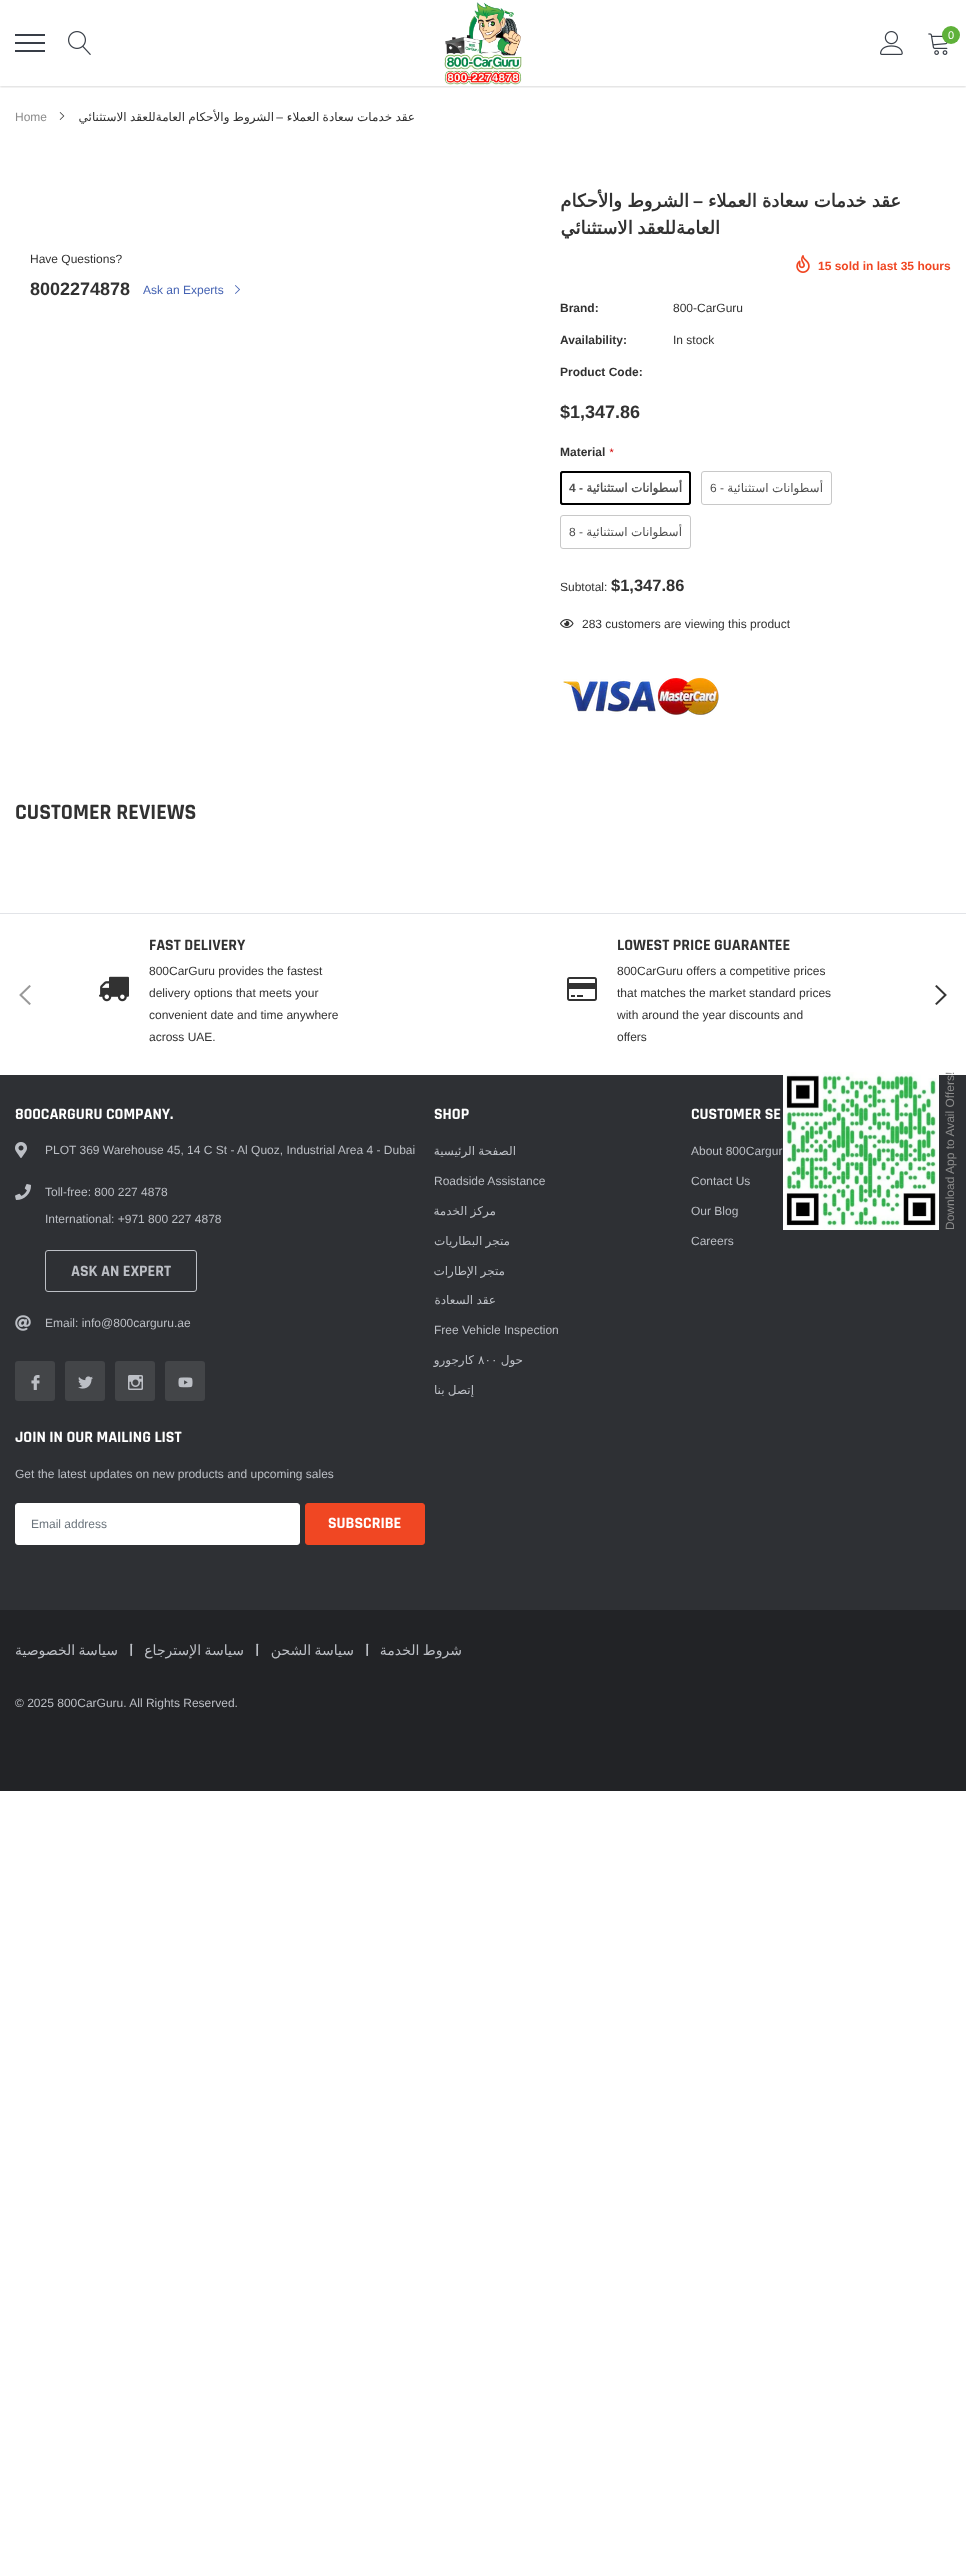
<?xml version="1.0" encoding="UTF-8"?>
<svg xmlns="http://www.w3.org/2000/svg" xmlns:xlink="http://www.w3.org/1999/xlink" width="966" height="2556">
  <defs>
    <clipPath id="clip1"><rect x="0" y="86" width="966" height="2" /></clipPath>
  </defs>
  <rect width="100%" height="100%" fill="#ffffff" />
  <g clip-path="url(#clip1)">
    <rect y="1" width="966" height="86" fill="#000000" fill-opacity="0.15" filter="blur(1px)" />
  </g>
  <rect x="15" y="42" width="30" height="2" fill="#383e47" />
  <rect x="15" y="34" width="30" height="2" fill="#383e47" />
  <rect x="15" y="50" width="30" height="2" fill="#383e47" />
  <image x="68" y="31" width="23" height="24" xlink:href="image1.png" />
  <image x="444" y="2" width="78" height="83" xlink:href="image2.png" />
  <image x="880" y="31" width="23" height="24" xlink:href="image3.png" />
  <image x="928" y="33" width="20" height="22" xlink:href="image4.png" />
  <circle cx="951" cy="35" r="9" fill="#5fb139" />
  <image x="59" y="112" width="6" height="8" xlink:href="image5.png" />
  <image x="235" y="285" width="5" height="9" xlink:href="image6.png" />
  <image x="796" y="255" width="14" height="18" xlink:href="image7.png" />
  <rect x="560.5" y="471.5" width="130" height="33" rx="2.5" fill="none" stroke="#000000" />
  <rect x="561" y="472" width="129" height="32" rx="2" fill="none" stroke="#000000" stroke-width="2" />
  <rect x="701.5" y="471.5" width="130" height="33" rx="2.5" fill="none" stroke="#c8c8c8" />
  <rect x="560.5" y="515.5" width="130" height="33" rx="2.5" fill="none" stroke="#c8c8c8" />
  <image x="560" y="619" width="14" height="9" xlink:href="image8.png" />
  <image x="563" y="677" width="156" height="38" xlink:href="image9.png" />
  <rect y="913" width="966" height="1" fill="#e2e4e8" />
  <image x="19" y="985" width="12" height="20" xlink:href="image10.png" />
  <image x="99" y="976" width="30" height="26" xlink:href="image11.png" />
  <image x="567" y="977" width="30" height="24" xlink:href="image12.png" />
  <image x="935" y="985" width="12" height="20" xlink:href="image13.png" />
  <rect y="1075" width="966" height="535" fill="#2e3034" />
  <image x="15" y="1142" width="12" height="16" xlink:href="image14.png" />
  <image x="15" y="1184" width="16" height="16" xlink:href="image15.png" />
  <rect x="45.5" y="1250.5" width="151" height="41" rx="2.5" fill="none" stroke="#bcbfc5" />
  <image x="15" y="1315" width="16" height="16" xlink:href="image16.png" />
  <rect x="15" y="1361" width="40" height="40" rx="3" fill="#434548" />
  <image x="31" y="1375" width="9" height="15" xlink:href="image17.png" />
  <rect x="65" y="1361" width="40" height="40" rx="3" fill="#434548" />
  <image x="78" y="1376" width="15" height="13" xlink:href="image18.png" />
  <rect x="115" y="1361" width="40" height="40" rx="3" fill="#434548" />
  <image x="128" y="1375" width="15" height="15" xlink:href="image19.png" />
  <rect x="165" y="1361" width="40" height="40" rx="3" fill="#434548" />
  <image x="178" y="1377" width="15" height="11" xlink:href="image20.png" />
  <rect x="15.5" y="1503.5" width="284" height="41" rx="2.5" fill="#ffffff" stroke="#ffffff" />
  <rect x="305.5" y="1503.5" width="119" height="41" rx="2.5" fill="#f04723" stroke="#f04723" />
  <rect y="1610" width="966" height="181" fill="#222326" />
  <image x="783" y="1072" width="156" height="158" xlink:href="image21.png" />
  <text x="948" y="39" style="font-family: Arimo; font-size: 11px; fill: #ffffff">0</text>
  <text x="15" y="121" style="font-family: Arimo; font-size: 12px; fill: #8c8c8c">Home</text>
  <text x="274" y="121" word-spacing="-0.5" style="font-family: DejaVu Sans; font-size: 12px; direction: rtl; fill: #323232">الشروط والأحكام العامةللعقد الاستثنائي</text>
  <text x="283" y="121" style="font-family: Arimo; font-size: 12px; direction: rtl; fill: #323232">–</text>
  <text x="415" y="121" word-spacing="-0.5" style="font-family: DejaVu Sans; font-size: 12px; direction: rtl; fill: #323232">عقد خدمات سعادة العملاء</text>
  <text x="30" y="263" style="font-family: Arimo; font-size: 12px; fill: #323232">Have Questions?</text>
  <text x="30" y="295" style="font-family: Arimo; font-size: 18px; font-weight: bold; fill: #323232">8002274878</text>
  <text x="143" y="294" style="font-family: Arimo; font-size: 12px; fill: #4563b3">Ask an Experts</text>
  <text x="689" y="207" word-spacing="-0.5" style="font-family: DejaVu Sans; font-size: 18px; font-weight: bold; direction: rtl; fill: #323232">الشروط والأحكام</text>
  <text x="703" y="207" style="font-family: Arimo; font-size: 18px; font-weight: bold; direction: rtl; fill: #323232">–</text>
  <text x="901" y="207" word-spacing="-0.5" style="font-family: DejaVu Sans; font-size: 18px; font-weight: bold; direction: rtl; fill: #323232">عقد خدمات سعادة العملاء</text>
  <text x="720" y="234" word-spacing="-1" style="font-family: DejaVu Sans; font-size: 18px; font-weight: bold; direction: rtl; fill: #323232">العامةللعقد الاستثنائي</text>
  <text x="818" y="270" style="font-family: Arimo; font-size: 12px; font-weight: bold; fill: #f04723">15 sold in last 35 hours</text>
  <text x="560" y="312" style="font-family: Arimo; font-size: 12px; font-weight: bold; fill: #323232">Brand:</text>
  <text x="673" y="312" style="font-family: Arimo; font-size: 12px; fill: #323232">800-CarGuru</text>
  <text x="560" y="344" style="font-family: Arimo; font-size: 12px; font-weight: bold; fill: #323232">Availability:</text>
  <text x="673" y="344" style="font-family: Arimo; font-size: 12px; fill: #323232">In stock</text>
  <text x="560" y="376" style="font-family: Arimo; font-size: 12px; font-weight: bold; fill: #323232">Product Code:</text>
  <text x="560" y="418" style="font-family: Arimo; font-size: 18px; font-weight: bold; fill: #323232">$1,347.86</text>
  <text x="560" y="456" style="font-family: Arimo; font-size: 12px; font-weight: bold; fill: #323232">Material</text>
  <text x="609" y="456" style="font-family: Arimo; font-size: 11px; font-style: italic; fill: #d20000">*</text>
  <text x="569" y="492" style="font-family: Arimo; font-size: 12px; font-weight: bold; fill: #505050">4 -</text>
  <text x="682" y="492" word-spacing="-0.5" style="font-family: DejaVu Sans; font-size: 12px; font-weight: bold; direction: rtl; fill: #505050">أسطوانات استثنائية</text>
  <text x="710" y="492" style="font-family: Arimo; font-size: 12px; fill: #505050">6 -</text>
  <text x="823" y="492" word-spacing="-0.5" style="font-family: DejaVu Sans; font-size: 12px; direction: rtl; fill: #505050">أسطوانات استثنائية</text>
  <text x="569" y="536" style="font-family: Arimo; font-size: 12px; fill: #505050">8 -</text>
  <text x="682" y="536" word-spacing="-0.5" style="font-family: DejaVu Sans; font-size: 12px; direction: rtl; fill: #505050">أسطوانات استثنائية</text>
  <text x="560" y="591" style="font-family: Arimo; font-size: 12px; fill: #323232">Subtotal:</text>
  <text x="611" y="591" style="font-family: Arimo; font-size: 16.5px; font-weight: bold; fill: #323232">$1,347.86</text>
  <text x="582" y="628" style="font-family: Arimo; font-size: 12px; fill: #323232">283 customers are viewing this product</text>
  <text x="15" y="819" style="font-family: Rajdhani; font-size: 22px; font-weight: bold; fill: #323232">CUSTOMER REVIEWS</text>
  <text x="149" y="950" style="font-family: Rajdhani; font-size: 16px; font-weight: bold; fill: #323232">FAST DELIVERY</text>
  <text x="149" y="975" style="font-family: Arimo; font-size: 12px; fill: #323232">800CarGuru provides the fastest</text>
  <text x="149" y="997" style="font-family: Arimo; font-size: 12px; fill: #323232">delivery options that meets your</text>
  <text x="149" y="1019" style="font-family: Arimo; font-size: 12px; fill: #323232">convenient date and time anywhere</text>
  <text x="149" y="1041" style="font-family: Arimo; font-size: 12px; fill: #323232">across UAE.</text>
  <text x="617" y="950" style="font-family: Rajdhani; font-size: 16px; font-weight: bold; fill: #323232">LOWEST PRICE GUARANTEE</text>
  <text x="617" y="975" style="font-family: Arimo; font-size: 12px; fill: #323232">800CarGuru offers a competitive prices</text>
  <text x="617" y="997" style="font-family: Arimo; font-size: 12px; fill: #323232">that matches the market standard prices</text>
  <text x="617" y="1019" style="font-family: Arimo; font-size: 12px; fill: #323232">with around the year discounts and</text>
  <text x="617" y="1041" style="font-family: Arimo; font-size: 12px; fill: #323232">offers</text>
  <text x="15" y="1119" style="font-family: Rajdhani; font-size: 16px; font-weight: bold; fill: #ffffff">800CARGURU COMPANY.</text>
  <text x="45" y="1154" style="font-family: Arimo; font-size: 12px; fill: #bcbfc5">PLOT 369 Warehouse 45, 14 C St - Al Quoz, Industrial Area 4 - Dubai</text>
  <text x="45" y="1196" style="font-family: Arimo; font-size: 12px; fill: #bcbfc5">Toll-free: 800 227 4878</text>
  <text x="45" y="1223" style="font-family: Arimo; font-size: 12px; fill: #bcbfc5">International: +971 800 227 4878</text>
  <text x="71" y="1276" style="font-family: Rajdhani; font-size: 16px; font-weight: bold; fill: #bcbfc5">ASK AN EXPERT</text>
  <text x="45" y="1327" style="font-family: Arimo; font-size: 12px; fill: #bcbfc5">Email: info@800carguru.ae</text>
  <text x="434" y="1119" style="font-family: Rajdhani; font-size: 16px; font-weight: bold; fill: #ffffff">SHOP</text>
  <text x="516" y="1155" word-spacing="-0.5" style="font-family: DejaVu Sans; font-size: 12px; direction: rtl; fill: #bcbfc5">الصفحة الرئيسية</text>
  <text x="434" y="1185" style="font-family: Arimo; font-size: 12px; fill: #bcbfc5">Roadside Assistance</text>
  <text x="496" y="1215" word-spacing="-0.5" style="font-family: DejaVu Sans; font-size: 12px; direction: rtl; fill: #bcbfc5">مركز الخدمة</text>
  <text x="510" y="1245" word-spacing="-0.5" style="font-family: DejaVu Sans; font-size: 12px; direction: rtl; fill: #bcbfc5">متجر البطاريات</text>
  <text x="505" y="1275" word-spacing="-0.5" style="font-family: DejaVu Sans; font-size: 12px; direction: rtl; fill: #bcbfc5">متجر الإطارات</text>
  <text x="496" y="1304" word-spacing="-0.5" style="font-family: DejaVu Sans; font-size: 12px; direction: rtl; fill: #bcbfc5">عقد السعادة</text>
  <text x="434" y="1334" style="font-family: Arimo; font-size: 12px; fill: #bcbfc5">Free Vehicle Inspection</text>
  <text x="474" y="1364" style="font-family: DejaVu Sans; font-size: 12px; direction: rtl; fill: #bcbfc5">كارجورو</text>
  <text x="478" y="1364" style="font-family: DejaVu Sans; font-size: 12px; fill: #bcbfc5">٨٠٠</text>
  <text x="523" y="1364" style="font-family: DejaVu Sans; font-size: 12px; direction: rtl; fill: #bcbfc5">حول</text>
  <text x="474" y="1394" word-spacing="-0.5" style="font-family: DejaVu Sans; font-size: 12px; direction: rtl; fill: #bcbfc5">إتصل بنا</text>
  <text x="691" y="1119" style="font-family: Rajdhani; font-size: 16px; font-weight: bold; fill: #ffffff">CUSTOMER SE</text>
  <text x="691" y="1155" style="font-family: Arimo; font-size: 12px; fill: #bcbfc5">About 800Cargur</text>
  <text x="691" y="1185" style="font-family: Arimo; font-size: 12px; fill: #bcbfc5">Contact Us</text>
  <text x="691" y="1215" style="font-family: Arimo; font-size: 12px; fill: #bcbfc5">Our Blog</text>
  <text x="691" y="1245" style="font-family: Arimo; font-size: 12px; fill: #bcbfc5">Careers</text>
  <text x="15" y="1442" style="font-family: Rajdhani; font-size: 16px; font-weight: bold; fill: #ffffff">JOIN IN OUR MAILING LIST</text>
  <text x="15" y="1478" style="font-family: Arimo; font-size: 12px; fill: #bcbfc5">Get the latest updates on new products and upcoming sales</text>
  <text x="31" y="1528" style="font-family: Arimo; font-size: 12px; fill: #6c757d">Email address</text>
  <text x="328" y="1528" style="font-family: Rajdhani; font-size: 16px; font-weight: bold; fill: #ffffff">SUBSCRIBE</text>
  <text x="118" y="1655" word-spacing="-1" style="font-family: DejaVu Sans; font-size: 14px; direction: rtl; fill: #bcbfc5">سياسة الخصوصية</text>
  <text x="129" y="1656" style="font-family: Rajdhani; font-size: 19px; font-weight: bold; fill: #bcbfc5">|</text>
  <text x="244" y="1655" word-spacing="-1" style="font-family: DejaVu Sans; font-size: 14px; direction: rtl; fill: #bcbfc5">سياسة الإسترجاع</text>
  <text x="255" y="1656" style="font-family: Rajdhani; font-size: 19px; font-weight: bold; fill: #bcbfc5">|</text>
  <text x="354" y="1655" word-spacing="-1" style="font-family: DejaVu Sans; font-size: 14px; direction: rtl; fill: #bcbfc5">سياسة الشحن</text>
  <text x="365" y="1656" style="font-family: Rajdhani; font-size: 19px; font-weight: bold; fill: #bcbfc5">|</text>
  <text x="462" y="1655" word-spacing="-1" style="font-family: DejaVu Sans; font-size: 14px; direction: rtl; fill: #bcbfc5">شروط الخدمة</text>
  <text x="15" y="1707" style="font-family: Arimo; font-size: 12px; fill: #bcbfc5">© 2025 800CarGuru. All Rights Reserved.</text>
  <text x="954" y="1230" transform="rotate(-90 954 1230)" style="font-family: Arimo; font-size: 12px; fill: #8c8c8c">Download App to Avail Offers!</text>
</svg>
